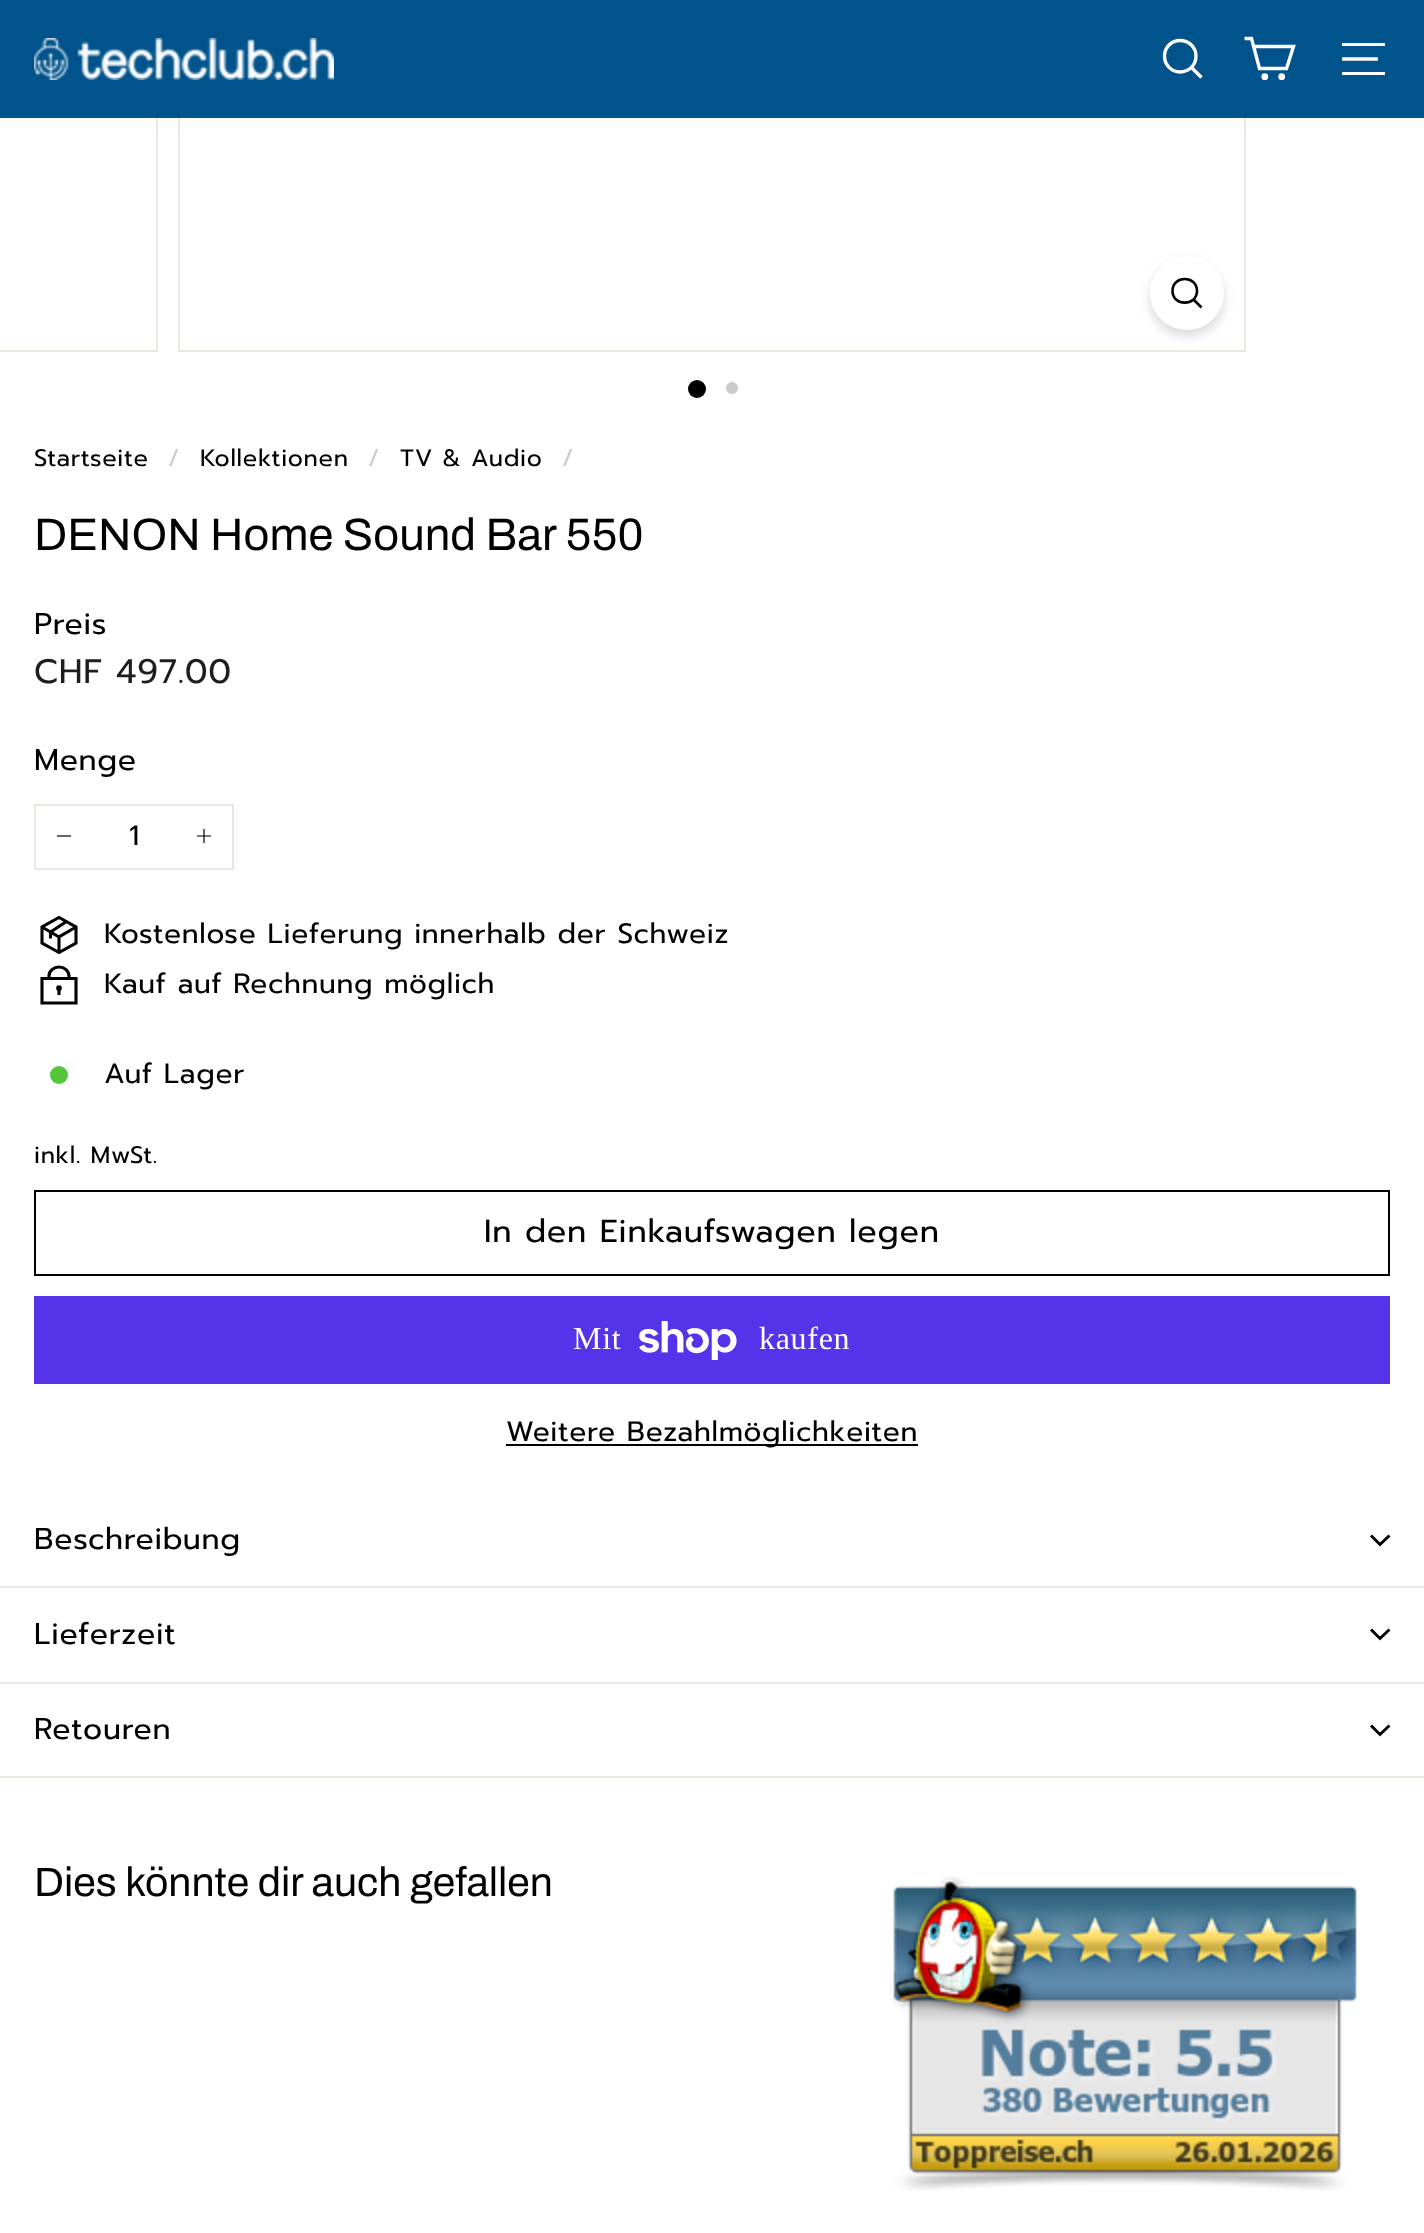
<?xml version="1.0" encoding="UTF-8"?>
<svg xmlns="http://www.w3.org/2000/svg" xmlns:xlink="http://www.w3.org/1999/xlink" width="1424" height="2233">
  <rect width="100%" height="100%" fill="#ffffff" />
  <rect x="-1" y="-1" width="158" height="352" fill="none" stroke="#e8e8e1" stroke-width="2" />
  <rect x="179" y="-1" width="1066" height="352" fill="none" stroke="#e8e8e1" stroke-width="2" />
  <rect width="1424" height="118" fill="#00538b" />
  <image x="34" y="38" width="300" height="42" xlink:href="image1.png" />
  <path d="M 1196 56 c 0 9 -7 16 -16 16 c -8.5 0 -15.5 -7 -15.5 -16 c 0 -8.5 7 -15.5 15.5 -15.5 c 9 0 16 7 16 15.5 m 5.5 21.5 l -10 -10" fill="none" stroke="#ffffff" stroke-width="3.4" />
  <path d="M 1254 46.5 h 39.5 l -7 22 h -27 l -8 -30 h -7" fill="none" stroke="#ffffff" stroke-width="3.4" />
  <circle cx="1264.8" cy="76.7" r="1.7" fill="none" stroke="#ffffff" stroke-width="3.4" />
  <circle cx="1281.7" cy="76.7" r="1.7" fill="none" stroke="#ffffff" stroke-width="3.4" />
  <rect x="1342" y="43" width="43" height="3" fill="#ffffff" />
  <path d="M 1342 59 h 36" fill="none" stroke="#ffffff" stroke-width="3.4" />
  <rect x="1342" y="72" width="43" height="3" fill="#ffffff" />
  <rect x="1150" y="262" width="74" height="74" rx="37" fill="#000000" fill-opacity="0.15" filter="blur(6px)" />
  <circle cx="1187" cy="293" r="37" fill="#ffffff" />
  <path d="M 1197 291 c 0 15.5 -24.5 15.5 -24.5 0 c 0 -16 24.5 -16 24.5 0 m 4.5 16.5 l -8 -8" fill="none" stroke="#000000" stroke-width="2.6" />
  <circle cx="697" cy="389" r="9" fill="#000000" />
  <circle cx="732" cy="388" r="6" fill="#cccccc" />
  <rect x="35" y="805" width="198" height="64" fill="none" stroke="#e8e8e1" stroke-width="2" />
  <path d="M 71 836 h -14" fill="none" stroke="#000000" stroke-width="1.2" />
  <path d="M 204 829 v 14 m 7 -7 h -14" fill="none" stroke="#000000" stroke-width="1.2" />
  <path d="M 59 952.5 l -17 -9.5 v -16 l 17 -9.5 l 17 9.5 v 16 z m 0 0 v -15.5 l 17 -10 m -17 10 l -17 -10 m 24.5 -5.5 l -16 10.5 v 6.5" fill="none" stroke="#000000" stroke-width="3.1" />
  <path d="M 49 978.5 v -2.5 c 0 -5.5 5 -9 10 -9 c 5.5 0 10 4 10 9 v 2.5 m -27 0 h 34 v 24.5 h -34 z m 17 11 v 5.5" fill="none" stroke="#000000" stroke-width="3.1" />
  <circle cx="59" cy="988" r="1.3" fill="none" stroke="#000000" stroke-width="3.1" />
  <circle cx="59" cy="1075" r="9" fill="#54c63a" />
  <rect x="35" y="1191" width="1354" height="84" fill="none" stroke="#000000" stroke-width="2" />
  <rect x="34" y="1296" width="1356" height="88" fill="#5433eb" />
  <image x="639" y="1321" width="98" height="39" xlink:href="image2.png" />
  <rect x="506" y="1444" width="412" height="2" fill="#000000" />
  <rect y="1586" width="1424" height="2" fill="#e8e8e1" />
  <path d="M 1371 1535.5 l 9 9 l 9.5 -9" fill="none" stroke="#000000" stroke-width="2.9" />
  <rect y="1682" width="1424" height="2" fill="#e8e8e1" />
  <path d="M 1371 1629.5 l 9 9 l 9.5 -9" fill="none" stroke="#000000" stroke-width="2.9" />
  <rect y="1776" width="1424" height="2" fill="#e8e8e1" />
  <path d="M 1371 1725.5 l 9 9 l 9.5 -9" fill="none" stroke="#000000" stroke-width="2.9" />
  <image x="889" y="1876" width="468" height="315" xlink:href="image3.png" />
  <text x="34" y="466" style="font-family: Prompt; font-size: 23.75px; letter-spacing: 0.7px; fill: #000000">Startseite</text>
  <text x="168" y="466" style="font-family: Prompt; font-size: 23.75px; letter-spacing: 0.7px; fill: #cccccc">/</text>
  <text x="200" y="466" style="font-family: Prompt; font-size: 23.75px; letter-spacing: 0.7px; fill: #000000">Kollektionen</text>
  <text x="368" y="466" style="font-family: Prompt; font-size: 23.75px; letter-spacing: 0.7px; fill: #cccccc">/</text>
  <text x="400" y="466" style="font-family: Prompt; font-size: 23.75px; letter-spacing: 0.7px; fill: #000000">TV &amp; Audio</text>
  <text x="562" y="466" style="font-family: Prompt; font-size: 23.75px; letter-spacing: 0.7px; fill: #cccccc">/</text>
  <text x="34" y="550" style="font-family: Archivo; font-size: 45.4px; fill: #000000">DENON Home Sound Bar 550</text>
  <text x="34" y="634" style="font-family: Prompt; font-size: 30px; letter-spacing: 0.7px; fill: #000000">Preis</text>
  <text x="34" y="683" style="font-family: Prompt; font-size: 34px; letter-spacing: 0.7px; fill: #1c1d1d">CHF 497.00</text>
  <text x="34" y="770" style="font-family: Prompt; font-size: 30px; letter-spacing: 0.7px; fill: #000000">Menge</text>
  <text x="129" y="845" style="font-family: Prompt; font-size: 28px; letter-spacing: 0.7px; fill: #000000">1</text>
  <text x="104" y="943" style="font-family: Prompt; font-size: 28px; letter-spacing: 0.7px; fill: #000000">Kostenlose Lieferung innerhalb der Schweiz</text>
  <text x="104" y="993" style="font-family: Prompt; font-size: 28px; letter-spacing: 0.7px; fill: #000000">Kauf auf Rechnung möglich</text>
  <text x="104" y="1083" style="font-family: Prompt; font-size: 28px; letter-spacing: 0.7px; fill: #000000">Auf Lager</text>
  <text x="34" y="1163" style="font-family: Prompt; font-size: 23.75px; letter-spacing: 0.7px; fill: #000000">inkl. MwSt.</text>
  <text x="484" y="1242" style="font-family: Prompt; font-size: 32px; letter-spacing: 0.8px; fill: #000000">In den Einkaufswagen legen</text>
  <text x="573" y="1349" style="font-family: Liberation Serif; font-size: 32px; letter-spacing: 0.7px; fill: #ffffff">Mit</text>
  <text x="759" y="1349" style="font-family: Liberation Serif; font-size: 32px; letter-spacing: 0.7px; fill: #ffffff">kaufen</text>
  <text x="506" y="1441" style="font-family: Prompt; font-size: 28px; letter-spacing: 0.7px; fill: #000000">Weitere Bezahlmöglichkeiten</text>
  <text x="34" y="1549" style="font-family: Prompt; font-size: 30px; letter-spacing: 0.75px; fill: #000000">Beschreibung</text>
  <text x="34" y="1644" style="font-family: Prompt; font-size: 30px; letter-spacing: 0.75px; fill: #000000">Lieferzeit</text>
  <text x="34" y="1739" style="font-family: Prompt; font-size: 30px; letter-spacing: 0.75px; fill: #000000">Retouren</text>
  <text x="34" y="1896" style="font-family: Archivo; font-size: 41px; fill: #000000">Dies könnte dir auch gefallen</text>
</svg>
